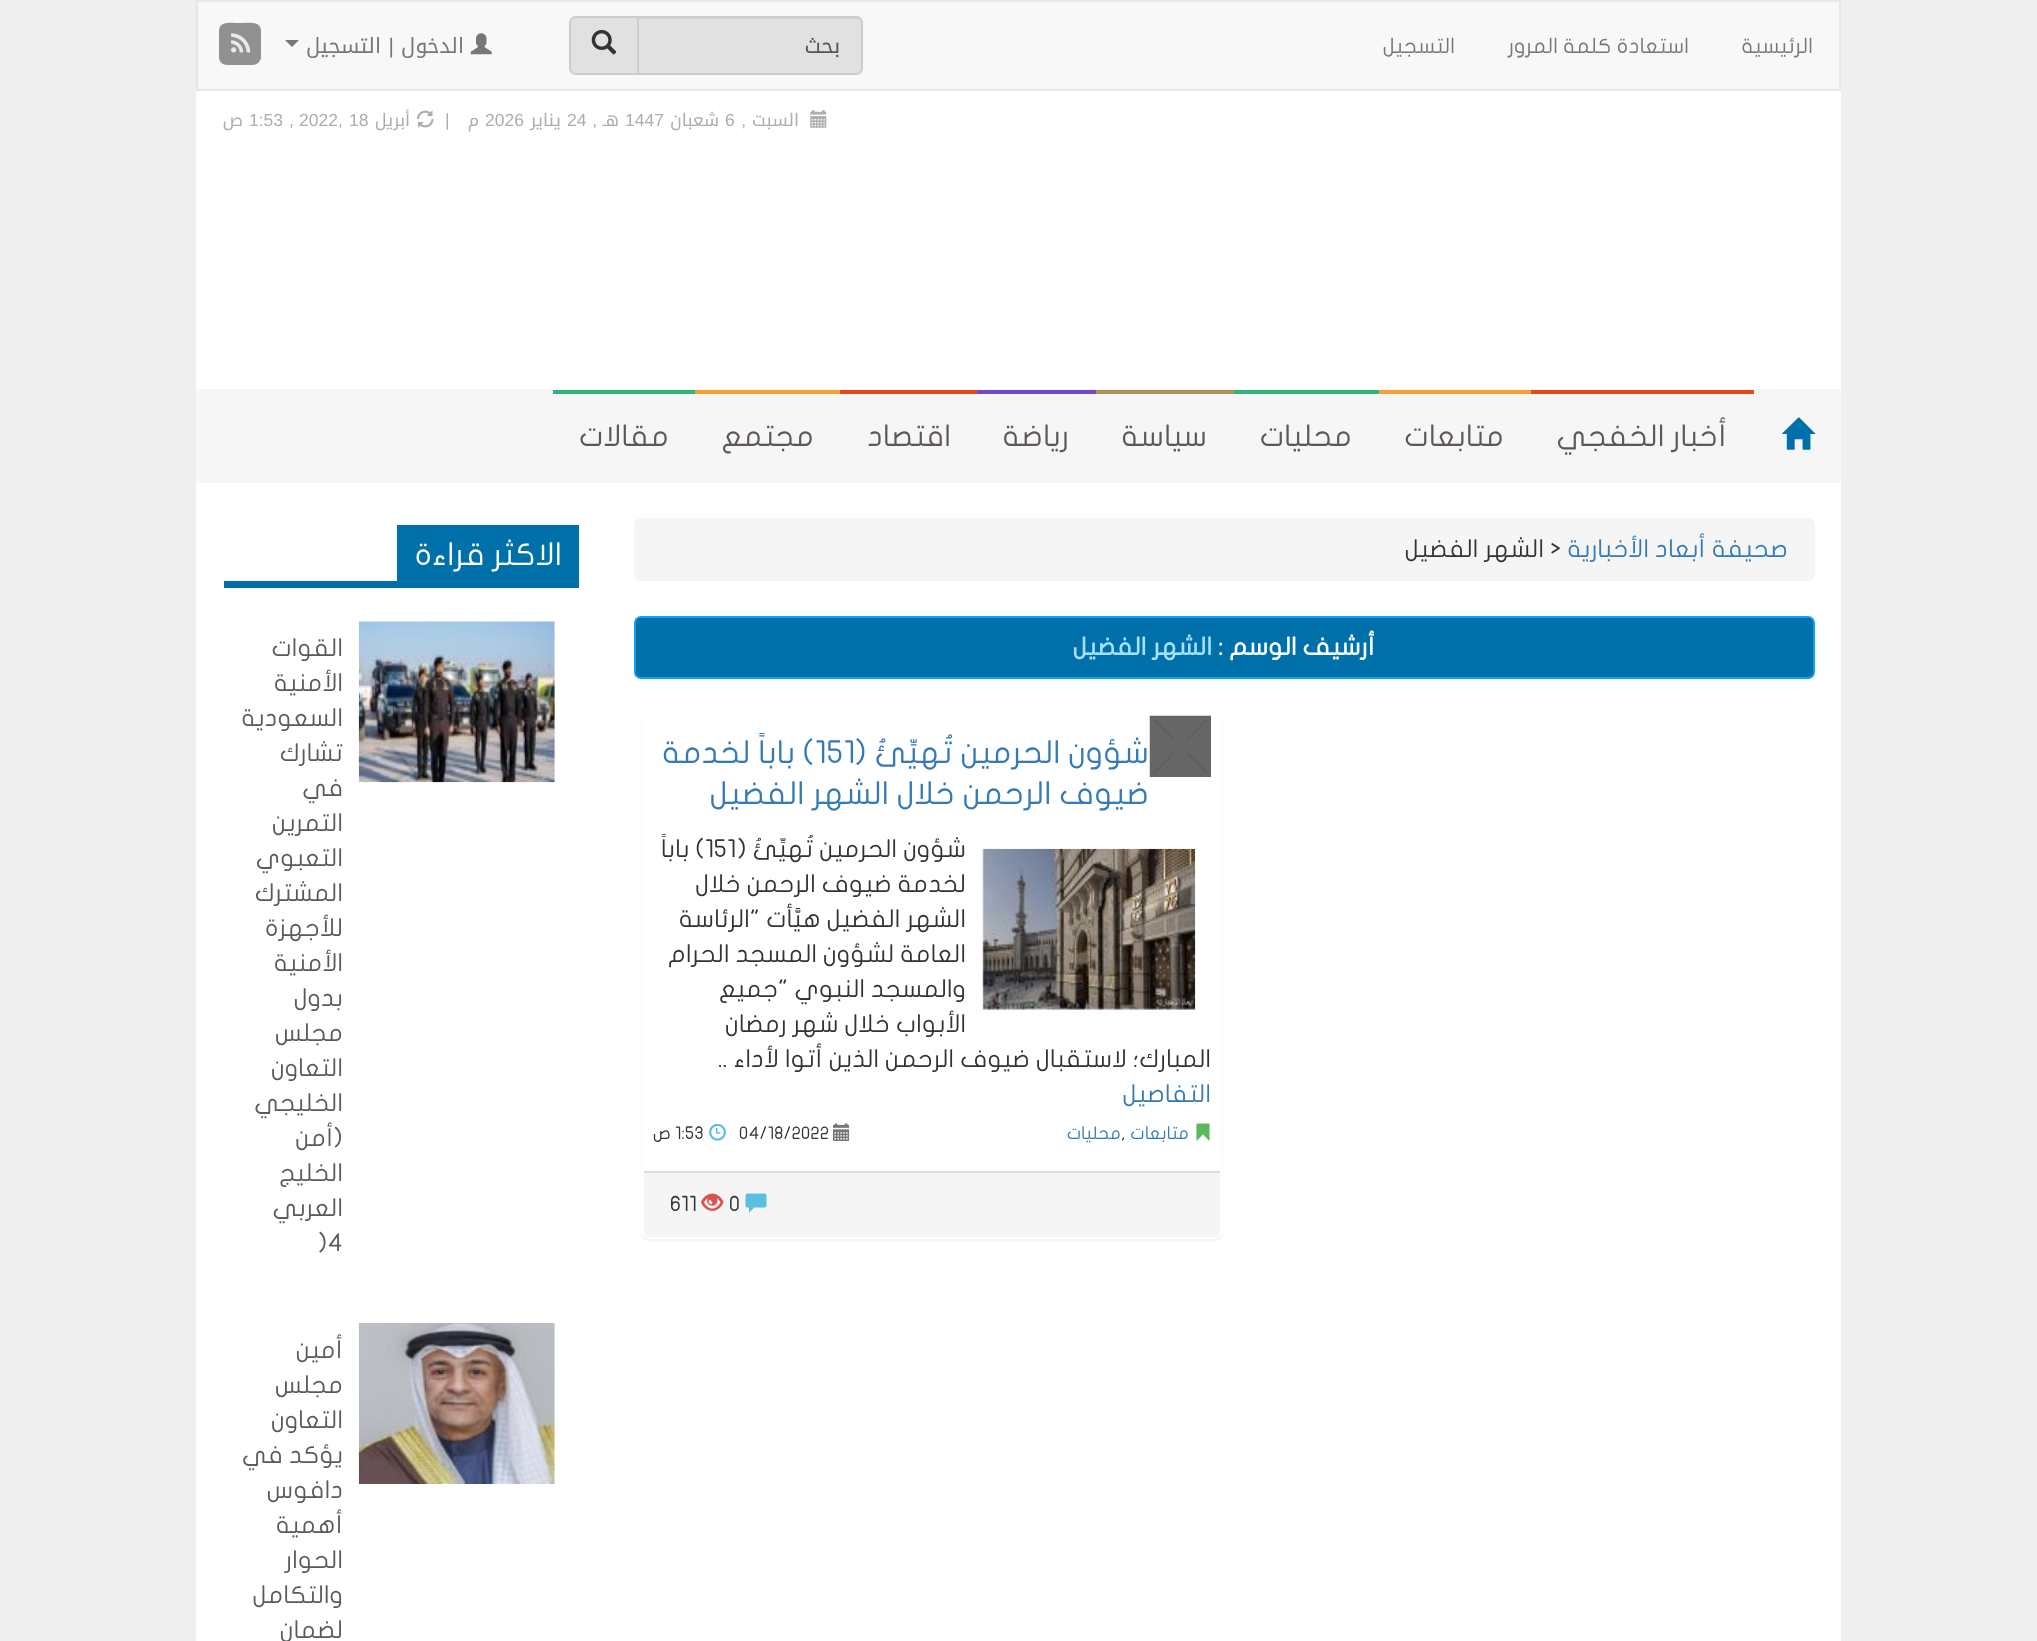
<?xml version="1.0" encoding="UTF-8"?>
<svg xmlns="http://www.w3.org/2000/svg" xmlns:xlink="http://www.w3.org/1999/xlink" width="2037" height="1641">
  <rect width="100%" height="100%" fill="#efefef" />
  <rect x="197" y="1" width="1643" height="89" fill="#f8f8f8" stroke="#e7e7e7" stroke-width="2" />
  <path d="M 576 17 h 62 v 57 h -62 c -3.5 0 -6 -2.5 -6 -6 v -45 c 0 -3.5 2.5 -6 6 -6 z" fill="#e1e1e1" stroke="#cccccc" stroke-width="2" />
  <path d="M 637 16 h 219 c 4 0 7 3 7 7 v 45 c 0 4 -3 7 -7 7 h -219 z" fill="#e1e1e1" />
  <path d="M 639 19 h 217 c 3 0 5 3 5 5 c 0 -3 -2 -6 -5 -6 h -217 z" fill="#d0d0d0" />
  <path d="M 638 17 h 218 c 3.5 0 6 2.5 6 6 v 45 c 0 3.5 -2.5 6 -6 6 h -218 z" fill="none" stroke="#cccccc" stroke-width="2" />
  <image x="591" y="29" width="26" height="26" xlink:href="image1.png" />
  <image x="470" y="33" width="22" height="22" xlink:href="image2.png" />
  <path d="M 285 40 h 14 l -7 7 z" fill="#777777" />
  <path d="M 261 31 v 27 c -2 7 -7 7 -13 7 h -17 c -5 0 -11 0 -12 -7 v -27 c 0 -11 14 -8 21 -8 c 6 0 21 -3 21 8 z" fill="#919191" />
  <image x="231" y="33" width="20" height="20" xlink:href="image3.png" />
  <rect x="196" y="91" width="1645" height="298" fill="#ffffff" />
  <image x="810" y="110" width="17" height="18" xlink:href="image4.png" />
  <image x="416" y="110" width="18" height="18" xlink:href="image5.png" />
  <rect x="196" y="389" width="1645" height="94" fill="#f6f6f6" />
  <image x="1782" y="417" width="34" height="33" xlink:href="image6.png" />
  <rect x="1531" y="390" width="223" height="4" fill="#e64a19" />
  <rect x="1379" y="390" width="152" height="4" fill="#f3a034" />
  <rect x="1234" y="390" width="145" height="4" fill="#30b47b" />
  <rect x="1096" y="390" width="138" height="4" fill="#ad9358" />
  <rect x="977" y="390" width="119" height="4" fill="#7247ca" />
  <rect x="840" y="390" width="137" height="4" fill="#e64a19" />
  <rect x="695" y="390" width="145" height="4" fill="#f3a034" />
  <rect x="553" y="390" width="142" height="4" fill="#30b47b" />
  <rect x="196" y="483" width="1645" height="1158" fill="#ffffff" />
  <rect x="634" y="518" width="1181" height="63" rx="7" fill="#f5f5f5" />
  <rect x="635" y="617" width="1179" height="61" rx="6" fill="#0070ab" stroke="#0ba2f1" stroke-width="2" />
  <rect x="642" y="716" width="580" height="525" rx="7" fill="#000000" fill-opacity="0.05" filter="blur(1px)" />
  <rect x="643" y="715" width="578" height="523" rx="6" fill="#ffffff" stroke="#ffffff" stroke-width="2" />
  <image x="1149" y="715" width="62" height="62" xlink:href="image7.png" />
  <image x="982" y="848" width="214" height="162" xlink:href="image8.png" />
  <image x="1196" y="1123" width="14" height="18" xlink:href="image9.png" />
  <image x="833" y="1123" width="17" height="18" xlink:href="image10.png" />
  <image x="709" y="1123" width="17" height="18" xlink:href="image11.png" />
  <path d="M 644 1171 h 576 v 61 c 0 3 -2 5 -5 5 h -566 c -3 0 -5 -2 -5 -5 z" fill="#f5f5f5" />
  <rect x="644" y="1171" width="576" height="2" fill="#dddddd" />
  <image x="745" y="1193" width="22" height="20" xlink:href="image12.png" />
  <image x="701" y="1193" width="23" height="18" xlink:href="image13.png" />
  <rect x="224" y="581" width="173" height="7" fill="#0070aa" />
  <rect x="397" y="525" width="182" height="63" fill="#0070aa" />
  <image x="358" y="621" width="197" height="162" xlink:href="image14.png" />
  <image x="358" y="1323" width="197" height="161" xlink:href="image15.png" />
  <text x="1813" y="53" style="font-family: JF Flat; font-size: 21px; direction: rtl; fill: #777777">الرئيسية</text>
  <text x="1689" y="53" style="font-family: JF Flat; font-size: 21px; direction: rtl; fill: #777777">استعادة كلمة المرور</text>
  <text x="1455" y="53" style="font-family: JF Flat; font-size: 21px; direction: rtl; fill: #777777">التسجيل</text>
  <text x="840" y="53" style="font-family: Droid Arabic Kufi; font-size: 21px; direction: rtl; fill: #555555">بحث</text>
  <text x="464" y="53" style="font-family: Droid Arabic Kufi; font-size: 21px; direction: rtl; fill: #777777">الدخول</text>
  <text x="394" y="53" style="font-family: Liberation Sans; font-size: 21px; direction: rtl; fill: #777777">|</text>
  <text x="381" y="53" style="font-family: Droid Arabic Kufi; font-size: 21px; direction: rtl; fill: #777777">التسجيل</text>
  <text x="799" y="126" style="font-family: Droid Arabic Kufi; font-size: 17.5px; direction: rtl; fill: #b0acac">السبت</text>
  <text x="746" y="126" style="font-family: Liberation Sans; font-size: 17.5px; direction: rtl; fill: #b0acac">,</text>
  <text x="725" y="126" style="font-family: Liberation Sans; font-size: 17.5px; fill: #b0acac">6</text>
  <text x="719" y="126" style="font-family: Droid Arabic Kufi; font-size: 17.5px; direction: rtl; fill: #b0acac">شعبان</text>
  <text x="625" y="126" style="font-family: Liberation Sans; font-size: 17.5px; fill: #b0acac">1447</text>
  <text x="619" y="126" style="font-family: Droid Arabic Kufi; font-size: 17.5px; direction: rtl; fill: #b0acac">هـ</text>
  <text x="597" y="126" style="font-family: Liberation Sans; font-size: 17.5px; direction: rtl; fill: #b0acac">,</text>
  <text x="567" y="126" style="font-family: Liberation Sans; font-size: 17.5px; fill: #b0acac">24</text>
  <text x="561" y="126" style="font-family: Droid Arabic Kufi; font-size: 17.5px; direction: rtl; fill: #b0acac">يناير</text>
  <text x="485" y="126" style="font-family: Liberation Sans; font-size: 17.5px; fill: #b0acac">2026</text>
  <text x="479" y="126" style="font-family: Droid Arabic Kufi; font-size: 17.5px; direction: rtl; fill: #b0acac">م</text>
  <text x="445" y="126" style="font-family: Liberation Sans; font-size: 17.5px; fill: #b0acac">|</text>
  <text x="410" y="126" style="font-family: Droid Arabic Kufi; font-size: 17.5px; direction: rtl; fill: #b0acac">أبريل</text>
  <text x="349" y="126" style="font-family: Liberation Sans; font-size: 17.5px; fill: #b0acac">18</text>
  <text x="299" y="126" style="font-family: Liberation Sans; font-size: 17.5px; fill: #b0acac">2022,</text>
  <text x="289" y="126" style="font-family: Liberation Sans; font-size: 17.5px; fill: #b0acac">,</text>
  <text x="249" y="126" style="font-family: Liberation Sans; font-size: 17.5px; fill: #b0acac">1:53</text>
  <text x="243" y="126" style="font-family: Droid Arabic Kufi; font-size: 17.5px; direction: rtl; fill: #b0acac">ص</text>
  <text x="1727" y="446" style="font-family: JF Flat; font-size: 29.75px; direction: rtl; fill: #5d5757">أخبار الخفجي</text>
  <text x="1504" y="446" style="font-family: JF Flat; font-size: 29.75px; direction: rtl; fill: #5d5757">متابعات</text>
  <text x="1352" y="446" style="font-family: JF Flat; font-size: 29.75px; direction: rtl; fill: #5d5757">محليات</text>
  <text x="1207" y="446" style="font-family: JF Flat; font-size: 29.75px; direction: rtl; fill: #5d5757">سياسة</text>
  <text x="1069" y="446" style="font-family: JF Flat; font-size: 29.75px; direction: rtl; fill: #5d5757">رياضة</text>
  <text x="951" y="446" style="font-family: JF Flat; font-size: 29.75px; direction: rtl; fill: #5d5757">اقتصاد</text>
  <text x="814" y="446" style="font-family: JF Flat; font-size: 29.75px; direction: rtl; fill: #5d5757">مجتمع</text>
  <text x="669" y="446" style="font-family: JF Flat; font-size: 29.75px; direction: rtl; fill: #5d5757">مقالات</text>
  <text x="1788" y="557" style="font-family: JF Flat; font-size: 24.5px; direction: rtl; fill: #337ab7">صحيفة أبعاد الأخبارية</text>
  <text x="1550" y="557" style="font-family: JF Flat; font-size: 24.5px; fill: #333333">&gt;</text>
  <text x="1544" y="557" style="font-family: JF Flat; font-size: 24.5px; direction: rtl; fill: #333333">الشهر الفضيل</text>
  <text x="1375" y="655" style="font-family: JF Flat; font-size: 24.5px; font-weight: bold; direction: rtl; fill: #ffffff">أرشيف الوسم :</text>
  <text x="1212" y="655" style="font-family: JF Flat; font-size: 24.5px; font-weight: bold; direction: rtl; fill: #a7e0fd">الشهر الفضيل</text>
  <text x="1149" y="763" style="font-family: JF Flat; font-size: 31.5px; direction: rtl; fill: #337ab7">شؤون الحرمين تُهيِّئُ (</text>
  <text x="815" y="763" style="font-family: JF Flat; font-size: 31.5px; fill: #337ab7">151</text>
  <text x="815" y="763" style="font-family: JF Flat; font-size: 31.5px; direction: rtl; fill: #337ab7">) باباً لخدمة</text>
  <text x="1149" y="804" style="font-family: JF Flat; font-size: 31.5px; direction: rtl; fill: #337ab7">ضيوف الرحمن خلال الشهر الفضيل</text>
  <text x="966" y="857" style="font-family: JF Flat; font-size: 24.5px; direction: rtl; fill: #333333">شؤون الحرمين تُهيِّئُ (</text>
  <text x="705" y="857" style="font-family: JF Flat; font-size: 24.5px; fill: #333333">151</text>
  <text x="705" y="857" style="font-family: JF Flat; font-size: 24.5px; direction: rtl; fill: #333333">) باباً</text>
  <text x="966" y="892" style="font-family: JF Flat; font-size: 24.5px; direction: rtl; fill: #333333">لخدمة ضيوف الرحمن خلال</text>
  <text x="966" y="927" style="font-family: JF Flat; font-size: 24.5px; direction: rtl; fill: #333333">الشهر الفضيل هيَّأت "الرئاسة</text>
  <text x="966" y="962" style="font-family: JF Flat; font-size: 24.5px; direction: rtl; fill: #333333">العامة لشؤون المسجد الحرام</text>
  <text x="966" y="997" style="font-family: JF Flat; font-size: 24.5px; direction: rtl; fill: #333333">والمسجد النبوي "جميع</text>
  <text x="966" y="1032" style="font-family: JF Flat; font-size: 24.5px; direction: rtl; fill: #333333">الأبواب خلال شهر رمضان</text>
  <text x="1211" y="1067" style="font-family: JF Flat; font-size: 24.5px; direction: rtl; fill: #333333">المبارك؛ لاستقبال ضيوف الرحمن الذين أتوا لأداء ..</text>
  <text x="1211" y="1102" style="font-family: JF Flat; font-size: 24.5px; direction: rtl; fill: #337ab7">التفاصيل</text>
  <text x="1189" y="1139" style="font-family: JF Flat; font-size: 17.5px; direction: rtl; fill: #337ab7">متابعات</text>
  <text x="1121" y="1139" style="font-family: JF Flat; font-size: 17.5px; fill: #333333">,</text>
  <text x="1121" y="1139" style="font-family: JF Flat; font-size: 17.5px; direction: rtl; fill: #337ab7">محليات</text>
  <text x="739" y="1139" style="font-family: JF Flat; font-size: 17.5px; fill: #333333">04/18/2022</text>
  <text x="675" y="1139" style="font-family: JF Flat; font-size: 17.5px; fill: #333333">1:53</text>
  <text x="671" y="1139" style="font-family: JF Flat; font-size: 17.5px; direction: rtl; fill: #333333">ص</text>
  <text x="729" y="1211" style="font-family: JF Flat; font-size: 21px; fill: #333333">0</text>
  <text x="670" y="1211" style="font-family: JF Flat; font-size: 21px; fill: #333333">611</text>
  <text x="562" y="565" style="font-family: JF Flat; font-size: 31.5px; direction: rtl; fill: #ffffff">الاكثر قراءة</text>
  <text x="343" y="656" style="font-family: JF Flat; font-size: 24.5px; direction: rtl; fill: #575a5e">القوات</text>
  <text x="343" y="691" style="font-family: JF Flat; font-size: 24.5px; direction: rtl; fill: #575a5e">الأمنية</text>
  <text x="343" y="726" style="font-family: JF Flat; font-size: 24.5px; direction: rtl; fill: #575a5e">السعودية</text>
  <text x="343" y="761" style="font-family: JF Flat; font-size: 24.5px; direction: rtl; fill: #575a5e">تشارك</text>
  <text x="343" y="796" style="font-family: JF Flat; font-size: 24.5px; direction: rtl; fill: #575a5e">في</text>
  <text x="343" y="831" style="font-family: JF Flat; font-size: 24.5px; direction: rtl; fill: #575a5e">التمرين</text>
  <text x="343" y="866" style="font-family: JF Flat; font-size: 24.5px; direction: rtl; fill: #575a5e">التعبوي</text>
  <text x="343" y="901" style="font-family: JF Flat; font-size: 24.5px; direction: rtl; fill: #575a5e">المشترك</text>
  <text x="343" y="936" style="font-family: JF Flat; font-size: 24.5px; direction: rtl; fill: #575a5e">للأجهزة</text>
  <text x="343" y="971" style="font-family: JF Flat; font-size: 24.5px; direction: rtl; fill: #575a5e">الأمنية</text>
  <text x="343" y="1006" style="font-family: JF Flat; font-size: 24.5px; direction: rtl; fill: #575a5e">بدول</text>
  <text x="343" y="1041" style="font-family: JF Flat; font-size: 24.5px; direction: rtl; fill: #575a5e">مجلس</text>
  <text x="343" y="1076" style="font-family: JF Flat; font-size: 24.5px; direction: rtl; fill: #575a5e">التعاون</text>
  <text x="343" y="1111" style="font-family: JF Flat; font-size: 24.5px; direction: rtl; fill: #575a5e">الخليجي</text>
  <text x="343" y="1146" style="font-family: JF Flat; font-size: 24.5px; direction: rtl; fill: #575a5e">(أمن</text>
  <text x="343" y="1181" style="font-family: JF Flat; font-size: 24.5px; direction: rtl; fill: #575a5e">الخليج</text>
  <text x="343" y="1216" style="font-family: JF Flat; font-size: 24.5px; direction: rtl; fill: #575a5e">العربي</text>
  <text x="318" y="1251" style="font-family: JF Flat; font-size: 24.5px; fill: #575a5e">)4</text>
  <text x="343" y="1358" style="font-family: JF Flat; font-size: 24.5px; direction: rtl; fill: #575a5e">أمين</text>
  <text x="343" y="1393" style="font-family: JF Flat; font-size: 24.5px; direction: rtl; fill: #575a5e">مجلس</text>
  <text x="343" y="1428" style="font-family: JF Flat; font-size: 24.5px; direction: rtl; fill: #575a5e">التعاون</text>
  <text x="343" y="1463" style="font-family: JF Flat; font-size: 24.5px; direction: rtl; fill: #575a5e">يؤكد في</text>
  <text x="343" y="1498" style="font-family: JF Flat; font-size: 24.5px; direction: rtl; fill: #575a5e">دافوس</text>
  <text x="343" y="1533" style="font-family: JF Flat; font-size: 24.5px; direction: rtl; fill: #575a5e">أهمية</text>
  <text x="343" y="1568" style="font-family: JF Flat; font-size: 24.5px; direction: rtl; fill: #575a5e">الحوار</text>
  <text x="343" y="1603" style="font-family: JF Flat; font-size: 24.5px; direction: rtl; fill: #575a5e">والتكامل</text>
  <text x="343" y="1638" style="font-family: JF Flat; font-size: 24.5px; direction: rtl; fill: #575a5e">لضمان</text>
</svg>
